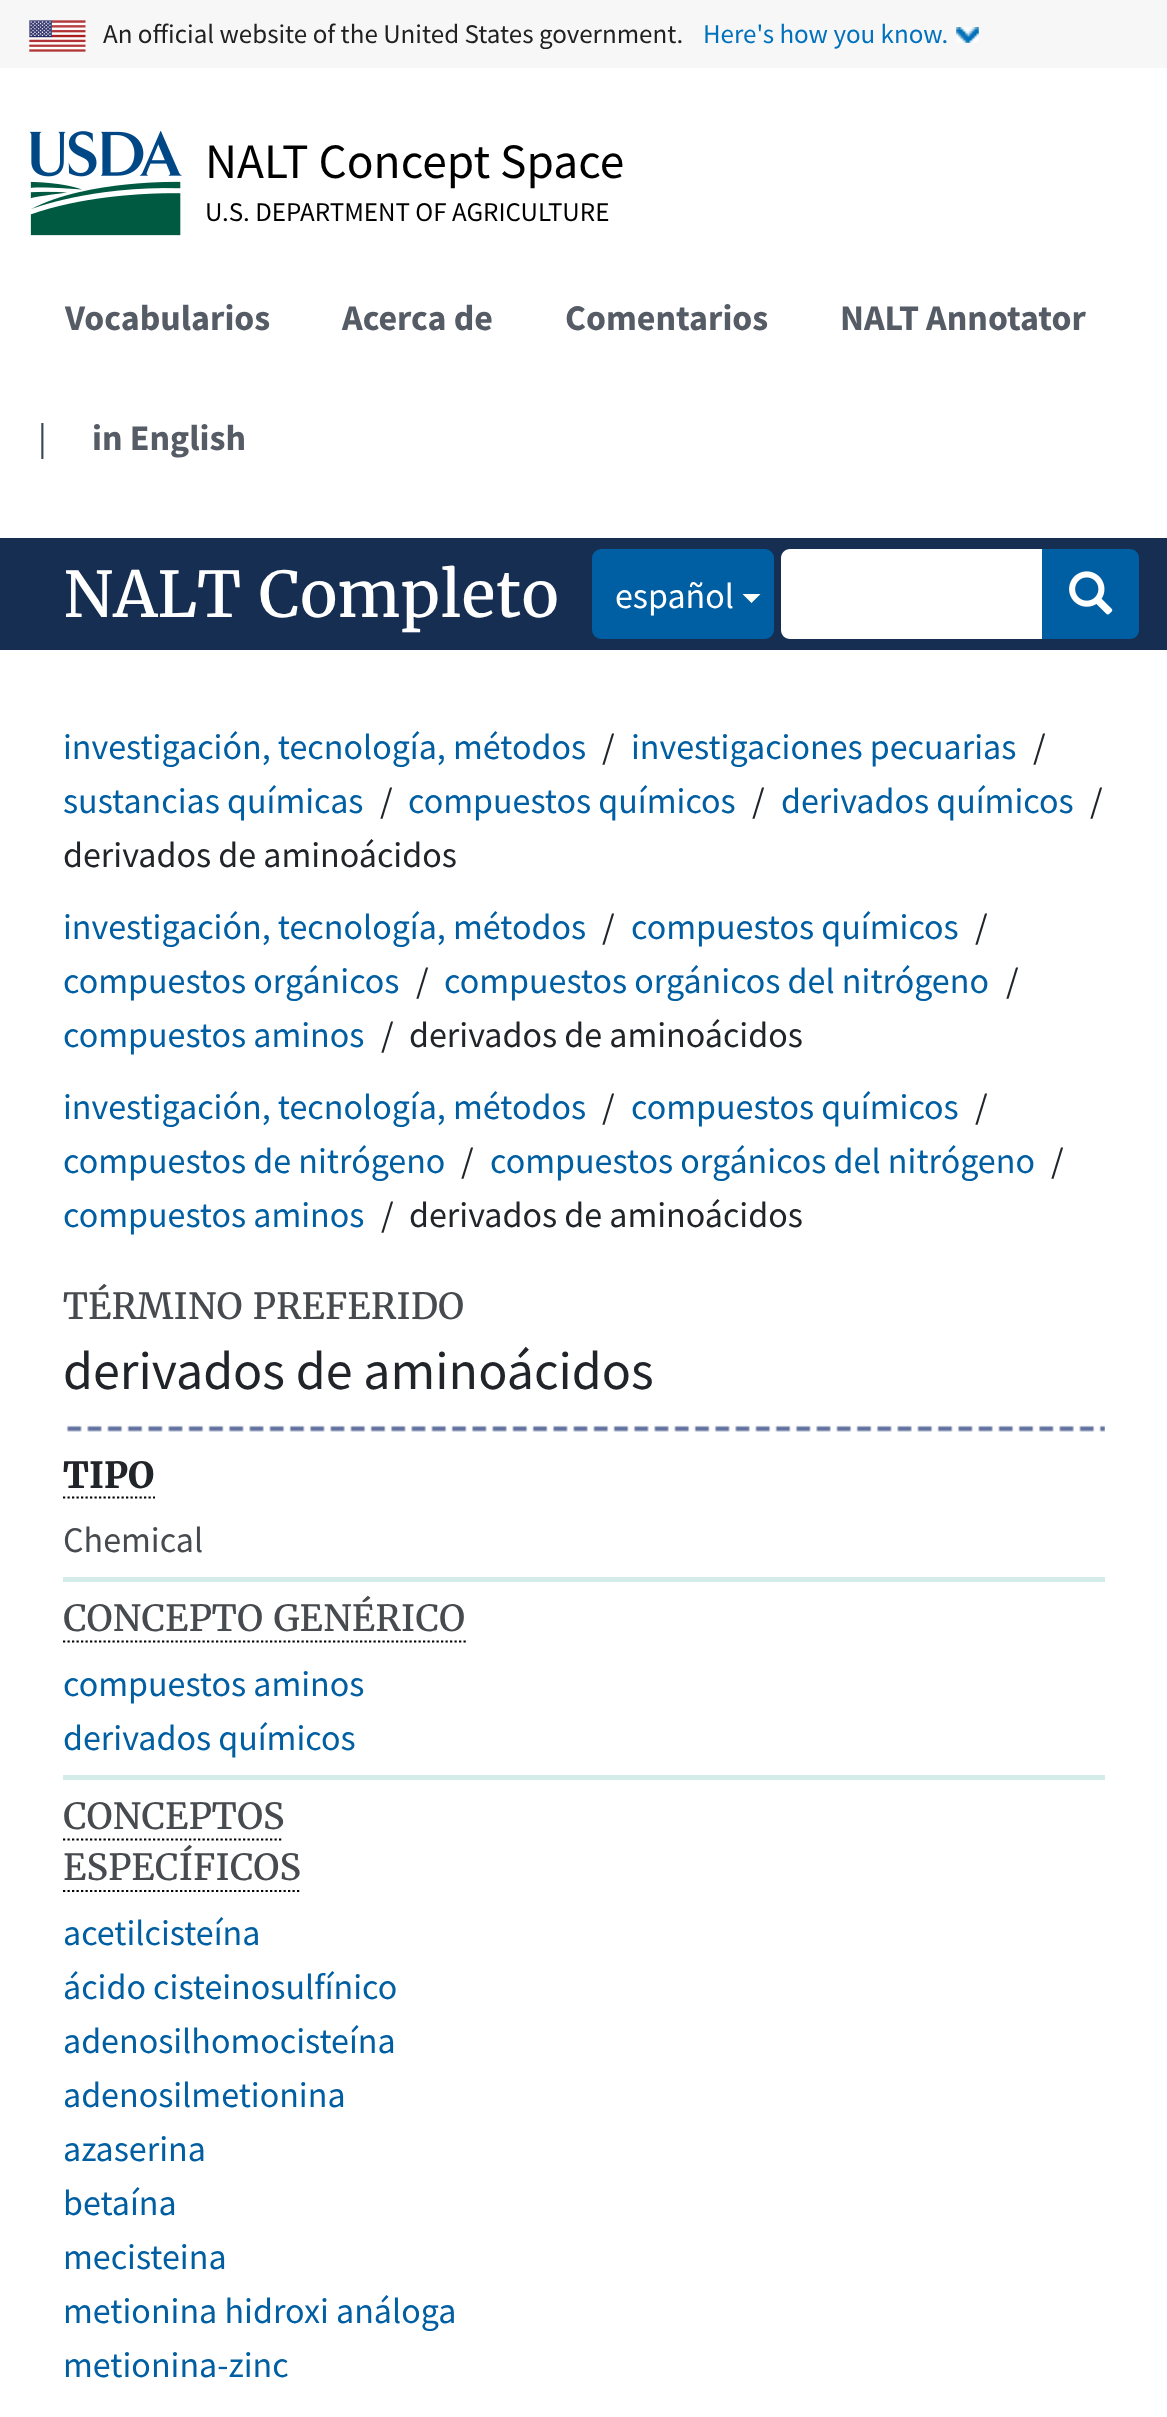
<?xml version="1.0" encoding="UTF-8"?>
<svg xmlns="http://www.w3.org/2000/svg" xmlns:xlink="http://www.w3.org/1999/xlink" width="1167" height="2417">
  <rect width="100%" height="100%" fill="#ffffff" />
  <rect width="1167" height="68" fill="#f7f7f7" />
  <image x="29" y="20" width="57" height="32" xlink:href="image1.png" />
  <image x="956" y="27" width="23" height="16" xlink:href="image2.png" />
  <image x="29" y="131" width="153" height="105" xlink:href="image3.png" />
  <rect y="538" width="1167" height="112" fill="#162e51" />
  <rect x="592" y="549" width="182" height="90" rx="9" fill="#005ea2" />
  <path d="M 742.5 594 h 18 l -9 9 z" fill="#ffffff" />
  <path d="M 790 549 h 254 v 90 h -254 c -5 0 -9 -4 -9 -9 v -72 c 0 -5 4 -9 9 -9 z" fill="#ffffff" />
  <path d="M 1042 549 h 88 c 5 0 9 4 9 9 v 72 c 0 5 -4 9 -9 9 h -88 z" fill="#005ea2" />
  <image x="1069" y="571" width="44" height="44" xlink:href="image4.png" />
  <image x="66" y="1425" width="1039" height="7" xlink:href="image5.png" />
  <path d="M 63 1497.5 h 92" fill="none" stroke="#000000" stroke-width="2.2" stroke-dasharray="2.25 2.25" />
  <rect x="63" y="1577" width="1042" height="5" fill="#d4edeb" />
  <path d="M 63 1641.5 h 403" fill="none" stroke="#000000" stroke-width="2.2" stroke-dasharray="2.25 2.25" />
  <rect x="63" y="1775" width="1042" height="5" fill="#d4edeb" />
  <path d="M 63 1839.5 h 220.5" fill="none" stroke="#000000" stroke-width="2.2" stroke-dasharray="2.25 2.25" />
  <path d="M 63 1891 h 238.5" fill="none" stroke="#000000" stroke-width="2.2" stroke-dasharray="2.25 2.25" />
  <text x="103" y="43" style="font-family: Source Sans Pro; font-size: 27px; fill: #212121">An official website of the United States government.</text>
  <text x="703" y="43" style="font-family: Source Sans Pro; font-size: 27px; fill: #0071bc">Here's how you know.</text>
  <text x="205" y="178" style="font-family: Source Sans Pro; font-size: 49.5px; fill: #000000">NALT Concept Space</text>
  <text x="205" y="221" style="font-family: Source Sans Pro; font-size: 27px; fill: #000000">U.S. DEPARTMENT OF AGRICULTURE</text>
  <text x="65" y="330" style="font-family: Source Sans Pro; font-size: 36px; font-weight: bold; fill: #565c65">Vocabularios</text>
  <text x="342" y="330" style="font-family: Source Sans Pro; font-size: 36px; font-weight: bold; fill: #565c65">Acerca de</text>
  <text x="565" y="330" style="font-family: Source Sans Pro; font-size: 36px; font-weight: bold; fill: #565c65">Comentarios</text>
  <text x="840" y="330" style="font-family: Source Sans Pro; font-size: 36px; font-weight: bold; fill: #565c65">NALT Annotator</text>
  <text x="38" y="450" style="font-family: Source Sans Pro; font-size: 36px; fill: #394554">|</text>
  <text x="92" y="450" style="font-family: Source Sans Pro; font-size: 36px; font-weight: bold; fill: #565c65">in English</text>
  <text x="63" y="617" style="font-family: Merriweather; font-size: 63px; fill: #ffffff">NALT Completo</text>
  <text x="615" y="608" style="font-family: Source Sans Pro; font-size: 36px; fill: #ffffff">español</text>
  <text x="63" y="759" style="font-family: Source Sans Pro; font-size: 36px; fill: #005ea2">investigación, tecnología, métodos</text>
  <text x="602" y="759" style="font-family: Source Sans Pro; font-size: 36px; fill: #212529">/</text>
  <text x="631" y="759" style="font-family: Source Sans Pro; font-size: 36px; fill: #005ea2">investigaciones pecuarias</text>
  <text x="1033" y="759" style="font-family: Source Sans Pro; font-size: 36px; fill: #212529">/</text>
  <text x="63" y="813" style="font-family: Source Sans Pro; font-size: 36px; fill: #005ea2">sustancias químicas</text>
  <text x="380" y="813" style="font-family: Source Sans Pro; font-size: 36px; fill: #212529">/</text>
  <text x="408" y="813" style="font-family: Source Sans Pro; font-size: 36px; fill: #005ea2">compuestos químicos</text>
  <text x="752" y="813" style="font-family: Source Sans Pro; font-size: 36px; fill: #212529">/</text>
  <text x="781" y="813" style="font-family: Source Sans Pro; font-size: 36px; fill: #005ea2">derivados químicos</text>
  <text x="1090" y="813" style="font-family: Source Sans Pro; font-size: 36px; fill: #212529">/</text>
  <text x="63" y="867" style="font-family: Source Sans Pro; font-size: 36px; fill: #212529">derivados de aminoácidos</text>
  <text x="63" y="939" style="font-family: Source Sans Pro; font-size: 36px; fill: #005ea2">investigación, tecnología, métodos</text>
  <text x="602" y="939" style="font-family: Source Sans Pro; font-size: 36px; fill: #212529">/</text>
  <text x="631" y="939" style="font-family: Source Sans Pro; font-size: 36px; fill: #005ea2">compuestos químicos</text>
  <text x="975" y="939" style="font-family: Source Sans Pro; font-size: 36px; fill: #212529">/</text>
  <text x="63" y="993" style="font-family: Source Sans Pro; font-size: 36px; fill: #005ea2">compuestos orgánicos</text>
  <text x="416" y="993" style="font-family: Source Sans Pro; font-size: 36px; fill: #212529">/</text>
  <text x="444" y="993" style="font-family: Source Sans Pro; font-size: 36px; fill: #005ea2">compuestos orgánicos del nitrógeno</text>
  <text x="1006" y="993" style="font-family: Source Sans Pro; font-size: 36px; fill: #212529">/</text>
  <text x="63" y="1047" style="font-family: Source Sans Pro; font-size: 36px; fill: #005ea2">compuestos aminos</text>
  <text x="381" y="1047" style="font-family: Source Sans Pro; font-size: 36px; fill: #212529">/</text>
  <text x="409" y="1047" style="font-family: Source Sans Pro; font-size: 36px; fill: #212529">derivados de aminoácidos</text>
  <text x="63" y="1119" style="font-family: Source Sans Pro; font-size: 36px; fill: #005ea2">investigación, tecnología, métodos</text>
  <text x="602" y="1119" style="font-family: Source Sans Pro; font-size: 36px; fill: #212529">/</text>
  <text x="631" y="1119" style="font-family: Source Sans Pro; font-size: 36px; fill: #005ea2">compuestos químicos</text>
  <text x="975" y="1119" style="font-family: Source Sans Pro; font-size: 36px; fill: #212529">/</text>
  <text x="63" y="1173" style="font-family: Source Sans Pro; font-size: 36px; fill: #005ea2">compuestos de nitrógeno</text>
  <text x="461" y="1173" style="font-family: Source Sans Pro; font-size: 36px; fill: #212529">/</text>
  <text x="490" y="1173" style="font-family: Source Sans Pro; font-size: 36px; fill: #005ea2">compuestos orgánicos del nitrógeno</text>
  <text x="1051" y="1173" style="font-family: Source Sans Pro; font-size: 36px; fill: #212529">/</text>
  <text x="63" y="1227" style="font-family: Source Sans Pro; font-size: 36px; fill: #005ea2">compuestos aminos</text>
  <text x="381" y="1227" style="font-family: Source Sans Pro; font-size: 36px; fill: #212529">/</text>
  <text x="409" y="1227" style="font-family: Source Sans Pro; font-size: 36px; fill: #212529">derivados de aminoácidos</text>
  <text x="63" y="1319" style="font-family: Merriweather; font-size: 36px; fill: #474b4f">TÉRMINO PREFERIDO</text>
  <text x="63" y="1389" style="font-family: Source Sans Pro; font-size: 54px; fill: #212529">derivados de aminoácidos</text>
  <text x="63" y="1488" style="font-family: Merriweather; font-size: 36px; font-weight: bold; fill: #212529">TIPO</text>
  <text x="63" y="1552" style="font-family: Source Sans Pro; font-size: 36px; fill: #474b4f">Chemical</text>
  <text x="63" y="1631" style="font-family: Merriweather; font-size: 36px; fill: #474b4f">CONCEPTO GENÉRICO</text>
  <text x="63" y="1696" style="font-family: Source Sans Pro; font-size: 36px; fill: #005ea2">compuestos aminos</text>
  <text x="63" y="1750" style="font-family: Source Sans Pro; font-size: 36px; fill: #005ea2">derivados químicos</text>
  <text x="63" y="1829" style="font-family: Merriweather; font-size: 36px; fill: #474b4f">CONCEPTOS</text>
  <text x="63" y="1880" style="font-family: Merriweather; font-size: 36px; fill: #474b4f">ESPECÍFICOS</text>
  <text x="63" y="1945" style="font-family: Source Sans Pro; font-size: 36px; fill: #005ea2">acetilcisteína</text>
  <text x="63" y="1999" style="font-family: Source Sans Pro; font-size: 36px; fill: #005ea2">ácido cisteinosulfínico</text>
  <text x="63" y="2053" style="font-family: Source Sans Pro; font-size: 36px; fill: #005ea2">adenosilhomocisteína</text>
  <text x="63" y="2107" style="font-family: Source Sans Pro; font-size: 36px; fill: #005ea2">adenosilmetionina</text>
  <text x="63" y="2161" style="font-family: Source Sans Pro; font-size: 36px; fill: #005ea2">azaserina</text>
  <text x="63" y="2215" style="font-family: Source Sans Pro; font-size: 36px; fill: #005ea2">betaína</text>
  <text x="63" y="2269" style="font-family: Source Sans Pro; font-size: 36px; fill: #005ea2">mecisteina</text>
  <text x="63" y="2323" style="font-family: Source Sans Pro; font-size: 36px; fill: #005ea2">metionina hidroxi análoga</text>
  <text x="63" y="2377" style="font-family: Source Sans Pro; font-size: 36px; fill: #005ea2">metionina-zinc</text>
</svg>
